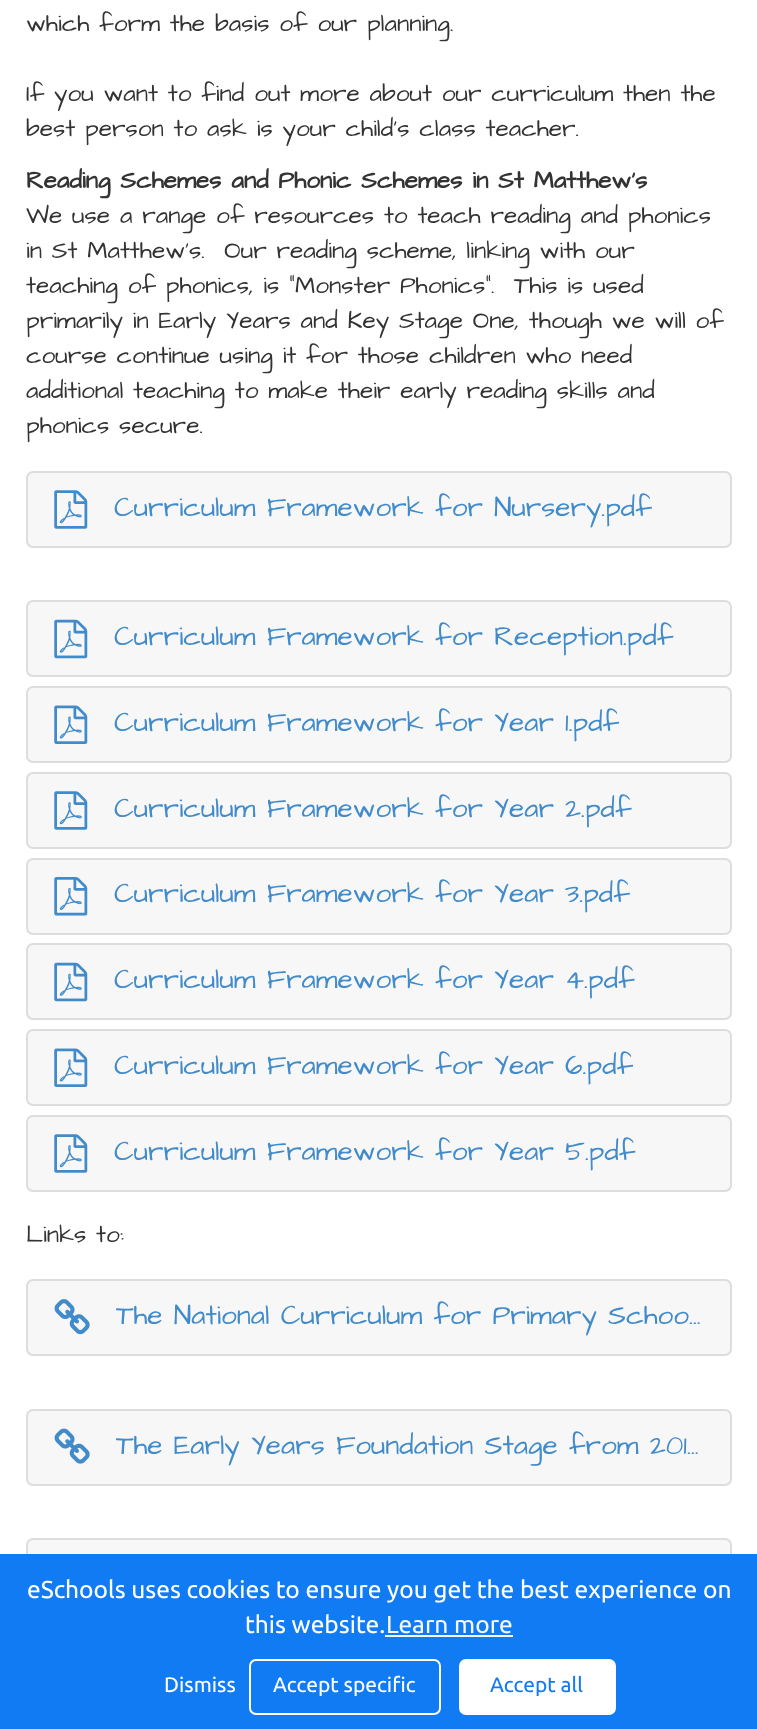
<?xml version="1.0" encoding="UTF-8"?>
<svg xmlns="http://www.w3.org/2000/svg" xmlns:xlink="http://www.w3.org/1999/xlink" width="757" height="1729">
  <rect width="100%" height="100%" fill="#ffffff" />
  <rect x="27" y="472" width="704" height="75" rx="6" fill="#f7f7f7" stroke="#dddddd" stroke-width="2" />
  <image x="54" y="490" width="34" height="39" xlink:href="image1.png" />
  <rect x="27" y="601" width="704" height="75" rx="6" fill="#f7f7f7" stroke="#dddddd" stroke-width="2" />
  <image x="54" y="619" width="34" height="40" xlink:href="image2.png" />
  <rect x="27" y="687" width="704" height="75" rx="6" fill="#f7f7f7" stroke="#dddddd" stroke-width="2" />
  <image x="54" y="705" width="34" height="39" xlink:href="image3.png" />
  <rect x="27" y="773" width="704" height="75" rx="6" fill="#f7f7f7" stroke="#dddddd" stroke-width="2" />
  <image x="54" y="791" width="34" height="39" xlink:href="image4.png" />
  <rect x="27" y="859" width="704" height="75" rx="6" fill="#f7f7f7" stroke="#dddddd" stroke-width="2" />
  <image x="54" y="877" width="34" height="39" xlink:href="image5.png" />
  <rect x="27" y="944" width="704" height="75" rx="6" fill="#f7f7f7" stroke="#dddddd" stroke-width="2" />
  <image x="54" y="962" width="34" height="40" xlink:href="image6.png" />
  <rect x="27" y="1030" width="704" height="75" rx="6" fill="#f7f7f7" stroke="#dddddd" stroke-width="2" />
  <image x="54" y="1048" width="34" height="39" xlink:href="image3.png" />
  <rect x="27" y="1116" width="704" height="75" rx="6" fill="#f7f7f7" stroke="#dddddd" stroke-width="2" />
  <image x="54" y="1134" width="34" height="39" xlink:href="image4.png" />
  <rect x="27" y="1280" width="704" height="75" rx="6" fill="#f7f7f7" stroke="#dddddd" stroke-width="2" />
  <image x="54" y="1299" width="36" height="36" xlink:href="image7.png" />
  <rect x="27" y="1410" width="704" height="75" rx="6" fill="#f7f7f7" stroke="#dddddd" stroke-width="2" />
  <image x="54" y="1428" width="36" height="36" xlink:href="image8.png" />
  <rect x="27" y="1539" width="704" height="75" rx="6" fill="#f7f7f7" stroke="#dddddd" stroke-width="2" />
  <rect y="1554" width="757" height="175" fill="#117bf3" />
  <rect x="385" y="1635" width="128" height="2" fill="#f7f7f7" />
  <rect x="250" y="1660" width="190" height="54" rx="6" fill="none" stroke="#ffffff" stroke-width="2" />
  <rect x="460" y="1660" width="155" height="54" rx="6" fill="#ffffff" stroke="#ffffff" stroke-width="2" />
  <text x="26" y="31" style="font-family: Architects Daughter; font-size: 24.5px; fill: #333333">which form the basis of our planning.</text>
  <text x="26" y="101" style="font-family: Architects Daughter; font-size: 24.5px; fill: #333333">If you want to find out more about our curriculum then the</text>
  <text x="26" y="136" style="font-family: Architects Daughter; font-size: 24.5px; fill: #333333">best person to ask is your child's class teacher.</text>
  <text x="26" y="188" style="font-family: Architects Daughter; font-size: 24.5px; font-weight: bold; fill: #333333">Reading Schemes and Phonic Schemes in St Matthew's</text>
  <text x="26" y="223" style="font-family: Architects Daughter; font-size: 24.5px; fill: #333333">We use a range of resources to teach reading and phonics</text>
  <text x="26" y="258" style="font-family: Architects Daughter; font-size: 24.5px; fill: #333333" xml:space="preserve">in St Matthew's.  Our reading scheme, linking with our</text>
  <text x="26" y="293" style="font-family: Architects Daughter; font-size: 24.5px; fill: #333333" xml:space="preserve">teaching of phonics, is "Monster Phonics".  This is used</text>
  <text x="26" y="328" style="font-family: Architects Daughter; font-size: 24.5px; fill: #333333">primarily in Early Years and Key Stage One, though we will of</text>
  <text x="26" y="363" style="font-family: Architects Daughter; font-size: 24.5px; fill: #333333">course continue using it for those children who need</text>
  <text x="26" y="398" style="font-family: Architects Daughter; font-size: 24.5px; fill: #333333">additional teaching to make their early reading skills and</text>
  <text x="26" y="433" style="font-family: Architects Daughter; font-size: 24.5px; fill: #333333">phonics secure.</text>
  <text x="114" y="516" style="font-family: Architects Daughter; font-size: 28px; fill: #428bca">Curriculum Framework for Nursery.pdf</text>
  <text x="114" y="645" style="font-family: Architects Daughter; font-size: 28px; fill: #428bca">Curriculum Framework for Reception.pdf</text>
  <text x="114" y="731" style="font-family: Architects Daughter; font-size: 28px; fill: #428bca">Curriculum Framework for Year 1.pdf</text>
  <text x="114" y="817" style="font-family: Architects Daughter; font-size: 28px; fill: #428bca">Curriculum Framework for Year 2.pdf</text>
  <text x="114" y="902" style="font-family: Architects Daughter; font-size: 28px; fill: #428bca">Curriculum Framework for Year 3.pdf</text>
  <text x="114" y="988" style="font-family: Architects Daughter; font-size: 28px; fill: #428bca">Curriculum Framework for Year 4.pdf</text>
  <text x="114" y="1074" style="font-family: Architects Daughter; font-size: 28px; fill: #428bca">Curriculum Framework for Year 6.pdf</text>
  <text x="114" y="1160" style="font-family: Architects Daughter; font-size: 28px; fill: #428bca">Curriculum Framework for Year 5.pdf</text>
  <text x="26" y="1242" style="font-family: Architects Daughter; font-size: 24.5px; fill: #333333">Links to:</text>
  <text x="116" y="1324" style="font-family: Architects Daughter; font-size: 28px; fill: #428bca">The National Curriculum for Primary Schoo…</text>
  <text x="116" y="1454" style="font-family: Architects Daughter; font-size: 28px; fill: #428bca">The Early Years Foundation Stage from 201…</text>
  <text x="27" y="1598" style="font-family: Ubuntu; font-size: 24.5px; fill: #ffffff">eSchools uses cookies to ensure you get the best experience on</text>
  <text x="245" y="1633" style="font-family: Ubuntu; font-size: 24.5px; fill: #ffffff">this website.</text>
  <text x="386" y="1633" style="font-family: Ubuntu; font-size: 24.5px; fill: #f7f7f7">Learn more</text>
  <text x="164" y="1692" style="font-family: Ubuntu; font-size: 21px; fill: #ffffff">Dismiss</text>
  <text x="273" y="1692" style="font-family: Ubuntu; font-size: 21px; fill: #ffffff">Accept specific</text>
  <text x="490" y="1692" style="font-family: Ubuntu; font-size: 21px; fill: #117bf3">Accept all</text>
</svg>
